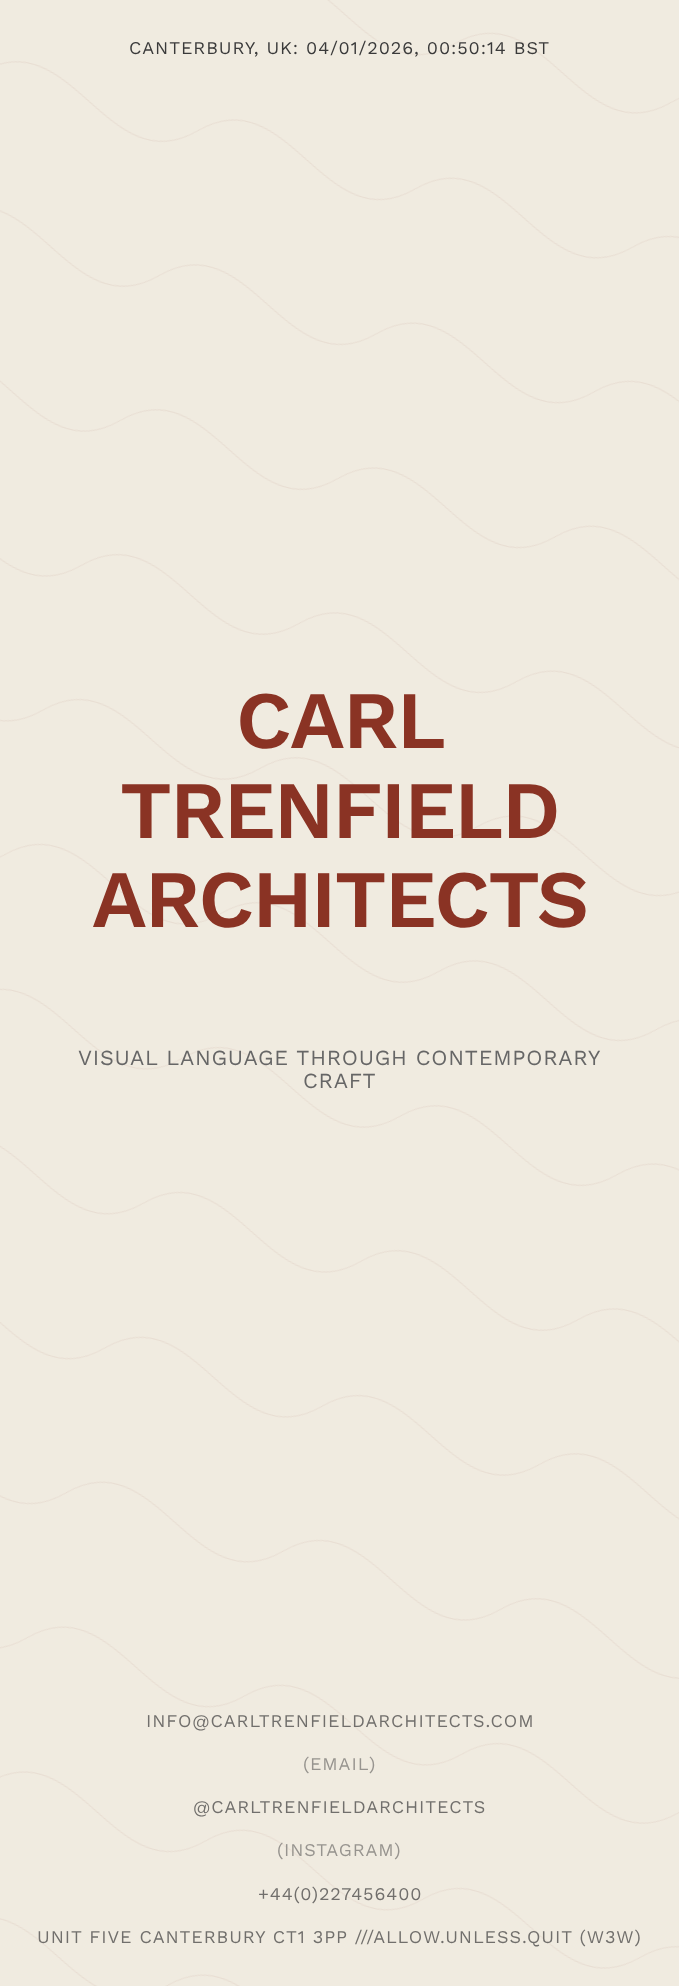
<?xml version="1.0" encoding="UTF-8"?>
<svg xmlns="http://www.w3.org/2000/svg" xmlns:xlink="http://www.w3.org/1999/xlink" width="679" height="1986">
  <rect width="100%" height="100%" fill="#f0ebe0" />
  <image x="0" y="0" width="679" height="1986" xlink:href="image1.png" />
  <text x="129" y="54" style="font-family: Work Sans; font-size: 18px; letter-spacing: 0.9px; fill: #3a3a3a">CANTERBURY, UK: 04/01/2026, 00:50:14 BST</text>
  <text x="236" y="748" style="font-family: Work Sans; font-size: 81.5px; font-weight: 600; letter-spacing: -1.6px; fill: #8a3324">CARL</text>
  <text x="120" y="838" style="font-family: Work Sans; font-size: 81.5px; font-weight: 600; letter-spacing: -1.6px; fill: #8a3324">TRENFIELD</text>
  <text x="92" y="927" style="font-family: Work Sans; font-size: 81.5px; font-weight: 600; letter-spacing: -1.6px; fill: #8a3324">ARCHITECTS</text>
  <text x="78" y="1065" style="font-family: Work Sans; font-size: 21.6px; letter-spacing: 0.75px; fill: #666666">VISUAL LANGUAGE THROUGH CONTEMPORARY</text>
  <text x="303" y="1088" style="font-family: Work Sans; font-size: 21.6px; letter-spacing: 0.75px; fill: #666666">CRAFT</text>
  <text x="146" y="1727" style="font-family: Work Sans; font-size: 18px; letter-spacing: 0.9px; fill: #716f6c">INFO@CARLTRENFIELDARCHITECTS.COM</text>
  <text x="303" y="1770" style="font-family: Work Sans; font-size: 18px; letter-spacing: 0.9px; fill: #97948f">(EMAIL)</text>
  <text x="193" y="1813" style="font-family: Work Sans; font-size: 18px; letter-spacing: 0.9px; fill: #716f6c">@CARLTRENFIELDARCHITECTS</text>
  <text x="277" y="1856" style="font-family: Work Sans; font-size: 18px; letter-spacing: 0.9px; fill: #97948f">(INSTAGRAM)</text>
  <text x="258" y="1900" style="font-family: Work Sans; font-size: 18px; letter-spacing: 0.9px; fill: #716f6c">+44(0)227456400</text>
  <text x="37" y="1943" style="font-family: Work Sans; font-size: 18px; letter-spacing: 0.9px; fill: #716f6c">UNIT FIVE CANTERBURY CT1 3PP ///ALLOW.UNLESS.QUIT (W3W)</text>
</svg>
